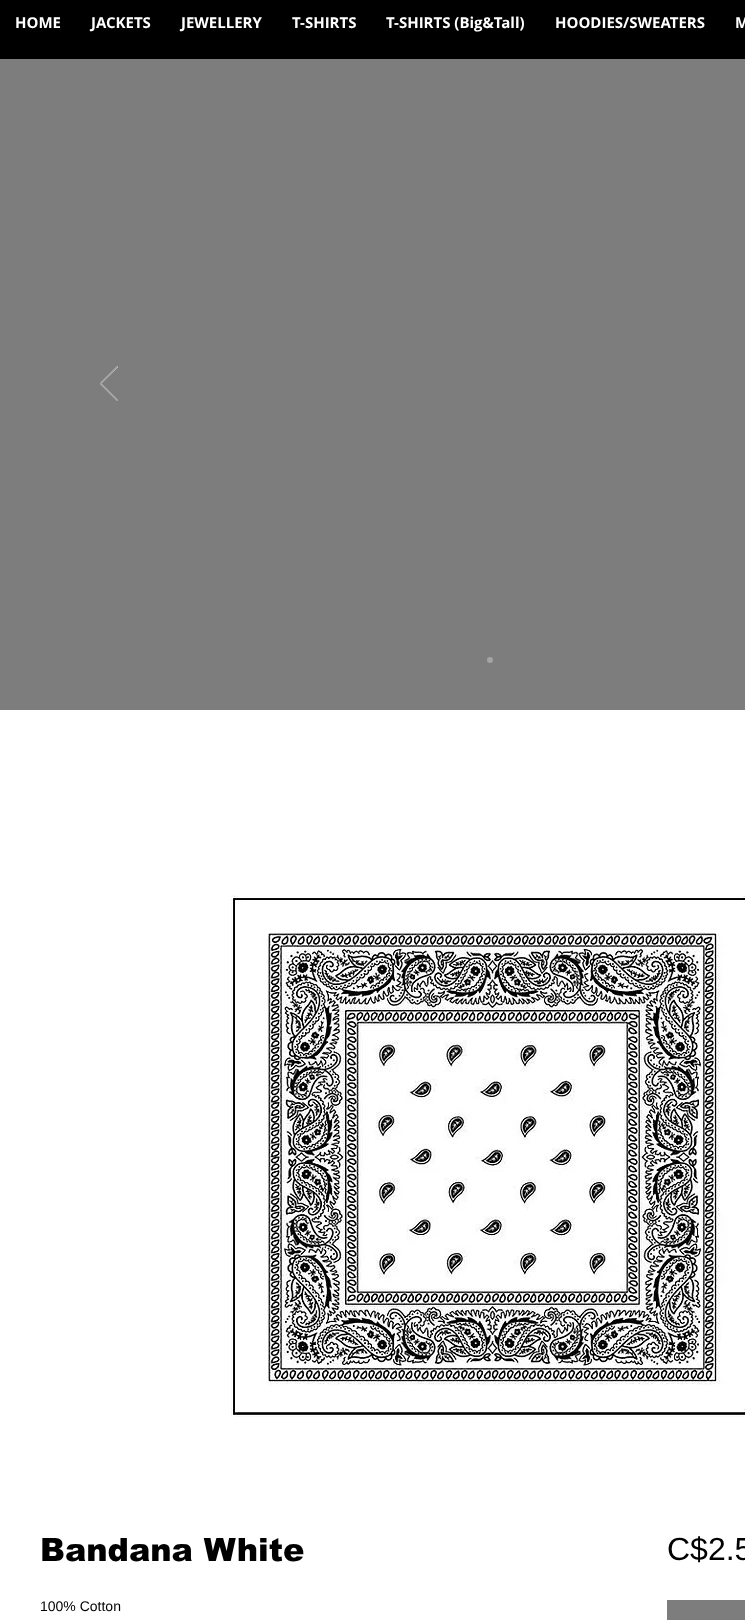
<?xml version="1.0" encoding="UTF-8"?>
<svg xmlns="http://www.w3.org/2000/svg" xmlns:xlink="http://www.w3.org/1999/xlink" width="745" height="1620">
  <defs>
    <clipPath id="clip1"><rect x="100" y="366" width="18" height="35" /></clipPath>
  </defs>
  <rect width="100%" height="100%" fill="#ffffff" />
  <rect width="745" height="59" fill="#000000" />
  <rect y="59" width="745" height="651" fill="#7d7d7d" />
  <g clip-path="url(#clip1)">
    <path d="M 117.5 401 l -17.5 -17.5 l 17.5 -17.5 l 0.5 1 l -17 16.5 l 17 17 z" fill="none" stroke="#c0c0c0" stroke-width="0.9" />
  </g>
  <circle cx="490" cy="660" r="3" fill="#a4a4a4" />
  <image x="231" y="895" width="514" height="522" xlink:href="image1.png" />
  <rect x="667" y="1600" width="78" height="20" fill="#7d7d7d" />
  <text x="15" y="28" style="font-family: Open Sans; font-size: 15px; font-weight: bold; fill: #ffffff">HOME</text>
  <text x="91" y="28" style="font-family: Open Sans; font-size: 15px; font-weight: bold; fill: #ffffff">JACKETS</text>
  <text x="181" y="28" style="font-family: Open Sans; font-size: 15px; font-weight: bold; fill: #ffffff">JEWELLERY</text>
  <text x="292" y="28" style="font-family: Open Sans; font-size: 15px; font-weight: bold; fill: #ffffff">T-SHIRTS</text>
  <text x="386" y="28" style="font-family: Open Sans; font-size: 15px; font-weight: bold; fill: #ffffff">T-SHIRTS (Big&amp;Tall)</text>
  <text x="555" y="28" style="font-family: Open Sans; font-size: 15px; font-weight: bold; fill: #ffffff">HOODIES/SWEATERS</text>
  <text x="735" y="28" style="font-family: Open Sans; font-size: 15px; font-weight: bold; fill: #ffffff">M</text>
  <text x="40" y="1561" style="font-family: arial; font-size: 32px; font-weight: 900; fill: #000000">Bandana White</text>
  <text x="40" y="1611" style="font-family: Liberation Sans; font-size: 14px; fill: #000000">100% Cotton</text>
  <text x="667" y="1560" style="font-family: Liberation Sans; font-size: 32px; fill: #000000">C$2.5</text>
</svg>
